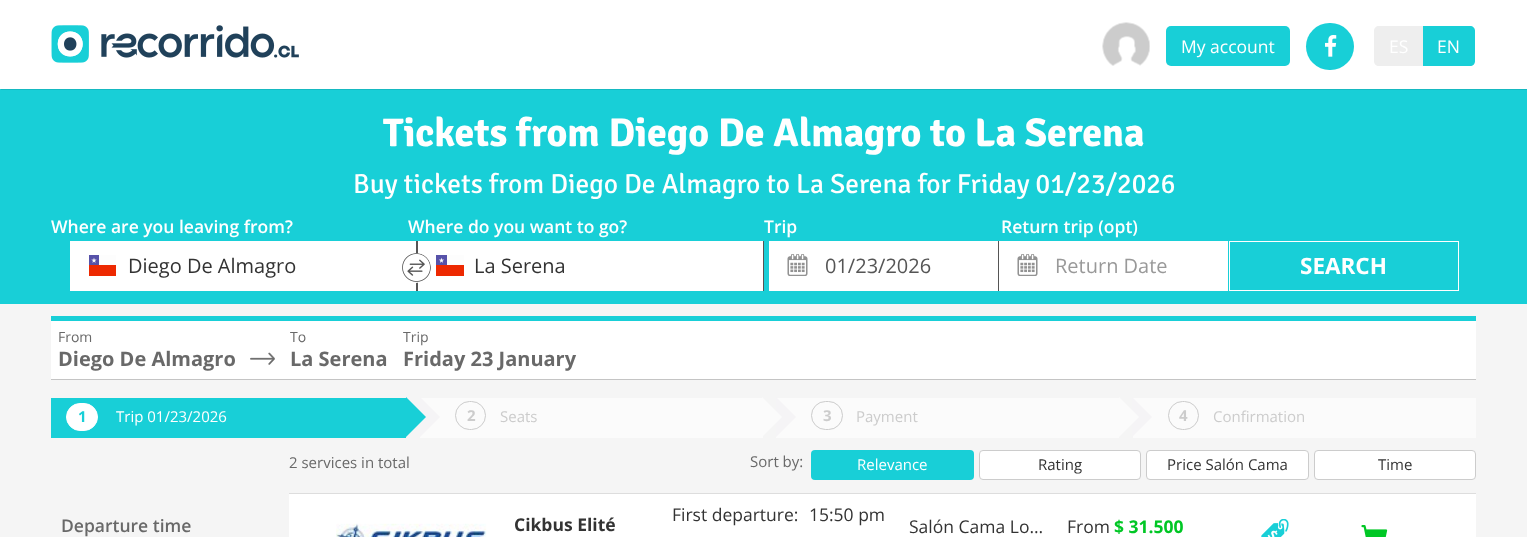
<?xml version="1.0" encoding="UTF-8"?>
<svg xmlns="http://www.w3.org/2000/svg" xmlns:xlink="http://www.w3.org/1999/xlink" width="1527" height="537">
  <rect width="100%" height="100%" fill="#f5f5f5" />
  <rect y="89" width="1527" height="215" fill="#18cfd7" />
  <rect x="1" y="1" width="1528" height="89" fill="#000000" fill-opacity="0.1" filter="blur(0.5px)" />
  <rect width="1527" height="89" fill="#ffffff" />
  <image x="51" y="25" width="248" height="38" xlink:href="image1.png" />
  <image x="1102" y="22" width="48" height="44" xlink:href="image2.png" />
  <rect x="1166" y="26" width="124" height="40" rx="5" fill="#18cfd7" />
  <rect x="1306" y="23" width="48" height="47" rx="23.5" fill="#18cfd7" />
  <image x="1325" y="35" width="12" height="22" xlink:href="image3.png" />
  <path d="M 1379 26 h 45 v 40 h -45 c -3 0 -5 -2 -5 -5 v -30 c 0 -3 2 -5 5 -5 z" fill="#eeeeee" />
  <path d="M 1423 26 h 47 c 3 0 5 2 5 5 v 30 c 0 3 -2 5 -5 5 h -47 z" fill="#18cfd7" />
  <rect x="416" y="241" width="2" height="50" fill="#555555" />
  <rect x="70" y="241" width="346" height="50" fill="#ffffff" />
  <image x="89" y="255" width="27" height="21" xlink:href="image4.png" />
  <rect x="418" y="241" width="345" height="50" fill="#ffffff" />
  <circle cx="416" cy="268" r="15" fill="#ffffff" />
  <image x="402" y="253" width="29" height="29" xlink:href="image5.png" />
  <rect x="763" y="241" width="1" height="50" fill="#555555" />
  <image x="436" y="255" width="28" height="21" xlink:href="image6.png" />
  <rect x="998" y="241" width="1" height="50" fill="#555555" />
  <rect x="769" y="241" width="229" height="50" fill="#ffffff" />
  <image x="787" y="254" width="21" height="22" xlink:href="image7.png" />
  <rect x="999" y="241" width="229" height="50" fill="#ffffff" />
  <image x="1017" y="254" width="21" height="22" xlink:href="image7.png" />
  <rect x="1229.5" y="241.5" width="229" height="49" fill="none" stroke="#ffffff" />
  <rect x="51" y="318" width="1425" height="62" fill="#000000" fill-opacity="0.2" filter="blur(0.5px)" />
  <rect x="51" y="321" width="1425" height="58" fill="#ffffff" />
  <rect x="51" y="316" width="1425" height="5" fill="#18cfd7" />
  <image x="250" y="352" width="25" height="13" xlink:href="image8.png" />
  <rect x="51" y="398" width="355" height="40" fill="#18cfd7" />
  <rect x="66.5" y="403.5" width="31" height="27" rx="13.5" fill="#ffffff" stroke="#ffffff" />
  <rect x="420" y="398" width="343" height="40" fill="#fbfbfb" />
  <path d="M 420 437 v -40 l 20 20 z" fill="#f5f4f6" />
  <path d="M 406 437 v -40 l 20 20 z" fill="#18cfd7" />
  <rect x="455.5" y="401.5" width="30" height="28" rx="14" fill="none" stroke="#cccccc" />
  <rect x="776" y="398" width="343" height="40" fill="#fbfbfb" />
  <path d="M 776 437 v -40 l 20 20 z" fill="#f5f4f6" />
  <path d="M 762 437 v -40 l 20 20 z" fill="#fbfbfb" />
  <rect x="811.5" y="401.5" width="31" height="28" rx="14" fill="none" stroke="#cccccc" />
  <rect x="1133" y="398" width="343" height="40" fill="#fbfbfb" />
  <path d="M 1132 437 v -40 l 20 20 z" fill="#f5f4f6" />
  <path d="M 1119 437 v -40 l 20 20 z" fill="#fbfbfb" />
  <rect x="1168.5" y="401.5" width="30" height="28" rx="14" fill="none" stroke="#cccccc" />
  <rect x="811" y="450" width="163" height="30" rx="4" fill="#18cfd7" />
  <rect x="979.5" y="450.5" width="161" height="29" rx="3.5" fill="#ffffff" stroke="#cccccc" />
  <rect x="1146.5" y="450.5" width="162" height="29" rx="3.5" fill="#ffffff" stroke="#cccccc" />
  <rect x="1314.5" y="450.5" width="161" height="29" rx="3.5" fill="#ffffff" stroke="#cccccc" />
  <rect x="289" y="494" width="1187" height="43" fill="#ffffff" />
  <rect x="289" y="493" width="1187" height="1" fill="#dddddd" />
  <image x="336" y="523" width="151" height="14" xlink:href="image9.png" />
  <image x="1261" y="519" width="28" height="18" xlink:href="image10.png" />
  <image x="1361" y="525" width="27" height="12" xlink:href="image11.png" />
  <text x="1181" y="53" style="font-family: Open Sans; font-size: 17.5px; fill: #ffffff">My account</text>
  <text x="1389" y="53" style="font-family: Open Sans; font-size: 17.5px; fill: #ffffff">ES</text>
  <text x="1437" y="53" style="font-family: Open Sans; font-size: 17.5px; fill: #ffffff">EN</text>
  <text x="383" y="146" style="font-family: Signika; font-size: 40px; font-weight: bold; fill: #ffffff">Tickets from Diego De Almagro to La Serena</text>
  <text x="353" y="193" style="font-family: Signika; font-size: 27.5px; fill: #ffffff">Buy tickets from Diego De Almagro to La Serena for Friday 01/23/2026</text>
  <text x="51" y="233" style="font-family: Open Sans; font-size: 17.5px; font-weight: 600; fill: #ffffff">Where are you leaving from?</text>
  <text x="408" y="233" style="font-family: Open Sans; font-size: 17.5px; font-weight: 600; fill: #ffffff">Where do you want to go?</text>
  <text x="764" y="233" style="font-family: Open Sans; font-size: 17.5px; font-weight: 600; fill: #ffffff">Trip</text>
  <text x="1001" y="233" style="font-family: Open Sans; font-size: 17.5px; font-weight: 600; fill: #ffffff">Return trip (opt)</text>
  <text x="128" y="273" style="font-family: Open Sans; font-size: 20px; fill: #333333">Diego De Almagro</text>
  <text x="474" y="273" style="font-family: Open Sans; font-size: 20px; fill: #333333">La Serena</text>
  <text x="825" y="273" style="font-family: Open Sans; font-size: 20px; fill: #555555">01/23/2026</text>
  <text x="1055" y="273" style="font-family: Open Sans; font-size: 20px; fill: #999999">Return Date</text>
  <text x="1300" y="274" style="font-family: Open Sans; font-size: 22.5px; font-weight: bold; fill: #ffffff">SEARCH</text>
  <text x="58" y="342" style="font-family: Open Sans; font-size: 14px; fill: #696969">From</text>
  <text x="58" y="366" style="font-family: Open Sans; font-size: 20px; font-weight: bold; fill: #696969">Diego De Almagro</text>
  <text x="290" y="342" style="font-family: Open Sans; font-size: 14px; fill: #696969">To</text>
  <text x="290" y="366" style="font-family: Open Sans; font-size: 20px; font-weight: bold; fill: #696969">La Serena</text>
  <text x="403" y="342" style="font-family: Open Sans; font-size: 14px; fill: #696969">Trip</text>
  <text x="403" y="366" style="font-family: Open Sans; font-size: 20px; font-weight: bold; fill: #696969">Friday 23 January</text>
  <text x="78" y="422" style="font-family: Open Sans; font-size: 15px; font-weight: bold; fill: #18cfd7">1</text>
  <text x="116" y="422" style="font-family: Open Sans; font-size: 15px; fill: #ffffff">Trip 01/23/2026</text>
  <text x="467" y="421" style="font-family: Open Sans; font-size: 15px; font-weight: bold; fill: #cccccc">2</text>
  <text x="500" y="422" style="font-family: Open Sans; font-size: 15px; fill: #cccccc">Seats</text>
  <text x="823" y="421" style="font-family: Open Sans; font-size: 15px; font-weight: bold; fill: #cccccc">3</text>
  <text x="856" y="422" style="font-family: Open Sans; font-size: 15px; fill: #cccccc">Payment</text>
  <text x="1179" y="421" style="font-family: Open Sans; font-size: 15px; font-weight: bold; fill: #cccccc">4</text>
  <text x="1213" y="422" style="font-family: Open Sans; font-size: 15px; fill: #cccccc">Confirmation</text>
  <text x="61" y="532" style="font-family: Open Sans; font-size: 17.5px; font-weight: 600; fill: #696969">Departure time</text>
  <text x="289" y="468" style="font-family: Open Sans; font-size: 15px; fill: #696969">2 services in total</text>
  <text x="750" y="467" style="font-family: Open Sans; font-size: 15px; fill: #696969">Sort by:</text>
  <text x="857" y="470" style="font-family: Open Sans; font-size: 15px; fill: #ffffff">Relevance</text>
  <text x="1038" y="470" style="font-family: Open Sans; font-size: 15px; fill: #333333">Rating</text>
  <text x="1167" y="470" style="font-family: Open Sans; font-size: 15px; fill: #333333">Price Salón Cama</text>
  <text x="1378" y="470" style="font-family: Open Sans; font-size: 15px; fill: #333333">Time</text>
  <text x="514" y="531" style="font-family: Open Sans; font-size: 17.5px; font-weight: bold; fill: #333333">Cikbus Elité</text>
  <text x="672" y="521" style="font-family: Open Sans; font-size: 17.5px; fill: #333333">First departure:</text>
  <text x="809" y="521" style="font-family: Open Sans; font-size: 17.5px; fill: #333333">15:50 pm</text>
  <text x="909" y="533" style="font-family: Open Sans; font-size: 17.5px; fill: #333333">Salón Cama Lo…</text>
  <text x="1067" y="533" style="font-family: Open Sans; font-size: 17.5px; fill: #333333">From</text>
  <text x="1114" y="533" style="font-family: Open Sans; font-size: 17.5px; font-weight: bold; fill: #00c725">$ 31.500</text>
</svg>
